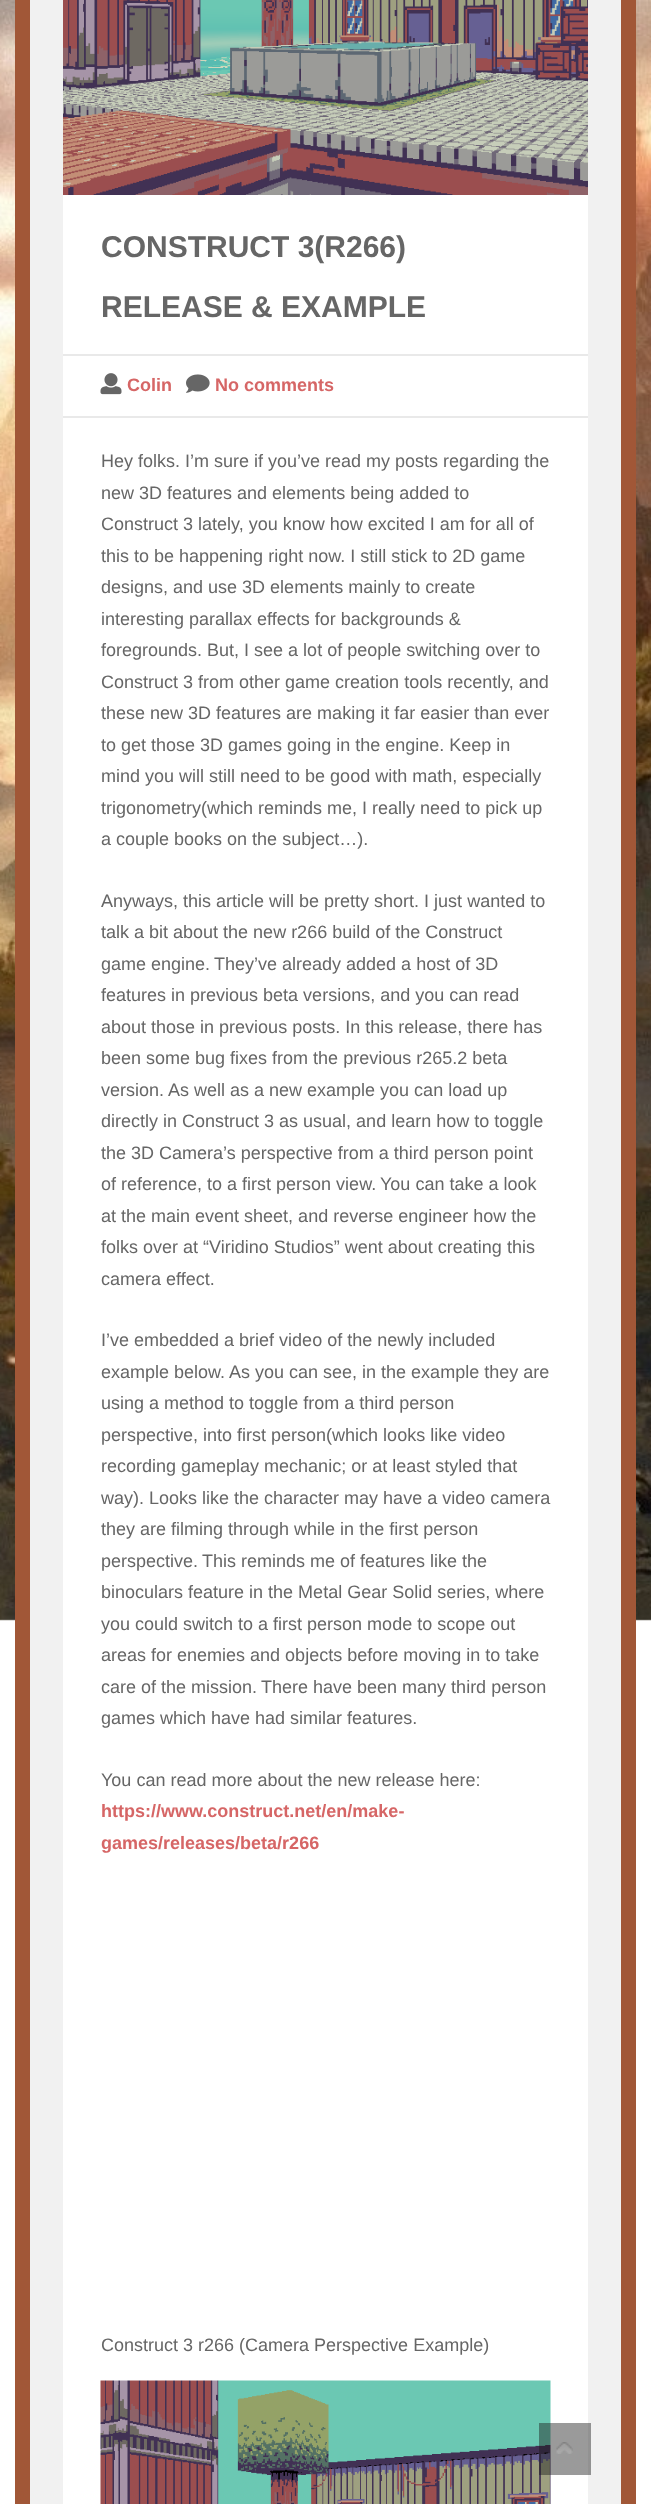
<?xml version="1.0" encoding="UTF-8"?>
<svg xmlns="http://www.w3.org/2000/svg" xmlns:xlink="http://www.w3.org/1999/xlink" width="651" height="2504">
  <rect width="100%" height="100%" fill="#ffffff" />
  <image x="0" y="0" width="651" height="1621" xlink:href="image1.png" />
  <rect x="22.5" y="-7.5" width="606" height="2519" fill="#f1f1f1" stroke="#a15737" stroke-width="15" />
  <rect x="63" y="195" width="525" height="2309" fill="#ffffff" />
  <image x="63" y="0" width="525" height="195" xlink:href="image2.png" />
  <rect x="63" y="354" width="525" height="2" fill="#e9e9e9" />
  <rect x="63" y="416" width="525" height="2" fill="#e9e9e9" />
  <image x="100" y="373" width="22" height="22" xlink:href="image3.png" />
  <image x="186" y="374" width="24" height="19" xlink:href="image4.png" />
  <image x="100" y="2380" width="451" height="124" xlink:href="image5.png" />
  <rect x="539" y="2423" width="52" height="52" fill="#191919" fill-opacity="0.44" />
  <image x="556" y="2442" width="17" height="12" xlink:href="image6.png" />
  <text x="101" y="257" style="font-family: Liberation Sans; font-size: 30px; font-weight: bold; fill: #666666">CONSTRUCT 3(R266)</text>
  <text x="101" y="317" style="font-family: Liberation Sans; font-size: 30px; font-weight: bold; fill: #666666">RELEASE &amp; EXAMPLE</text>
  <text x="127" y="391" style="font-family: Liberation Sans; font-size: 18px; font-weight: bold; fill: #d66666">Colin</text>
  <text x="215" y="391" style="font-family: Liberation Sans; font-size: 18px; font-weight: bold; fill: #d66666">No comments</text>
  <text x="101" y="467" style="font-family: Liberation Sans; font-size: 18px; fill: #666666">Hey folks. I’m sure if you’ve read my posts regarding the</text>
  <text x="101" y="499" style="font-family: Liberation Sans; font-size: 18px; fill: #666666">new 3D features and elements being added to</text>
  <text x="101" y="530" style="font-family: Liberation Sans; font-size: 18px; fill: #666666">Construct 3 lately, you know how excited I am for all of</text>
  <text x="101" y="562" style="font-family: Liberation Sans; font-size: 18px; fill: #666666">this to be happening right now. I still stick to 2D game</text>
  <text x="101" y="593" style="font-family: Liberation Sans; font-size: 18px; fill: #666666">designs, and use 3D elements mainly to create</text>
  <text x="101" y="625" style="font-family: Liberation Sans; font-size: 18px; fill: #666666">interesting parallax effects for backgrounds &amp;</text>
  <text x="101" y="656" style="font-family: Liberation Sans; font-size: 18px; fill: #666666">foregrounds. But, I see a lot of people switching over to</text>
  <text x="101" y="688" style="font-family: Liberation Sans; font-size: 18px; fill: #666666">Construct 3 from other game creation tools recently, and</text>
  <text x="101" y="719" style="font-family: Liberation Sans; font-size: 18px; fill: #666666">these new 3D features are making it far easier than ever</text>
  <text x="101" y="751" style="font-family: Liberation Sans; font-size: 18px; fill: #666666">to get those 3D games going in the engine. Keep in</text>
  <text x="101" y="782" style="font-family: Liberation Sans; font-size: 18px; fill: #666666">mind you will still need to be good with math, especially</text>
  <text x="101" y="814" style="font-family: Liberation Sans; font-size: 18px; fill: #666666">trigonometry(which reminds me, I really need to pick up</text>
  <text x="101" y="845" style="font-family: Liberation Sans; font-size: 18px; fill: #666666">a couple books on the subject…).</text>
  <text x="101" y="907" style="font-family: Liberation Sans; font-size: 18px; fill: #666666">Anyways, this article will be pretty short. I just wanted to</text>
  <text x="101" y="938" style="font-family: Liberation Sans; font-size: 18px; fill: #666666">talk a bit about the new r266 build of the Construct</text>
  <text x="101" y="970" style="font-family: Liberation Sans; font-size: 18px; fill: #666666">game engine.</text>
  <text x="214" y="970" style="font-family: Liberation Sans; font-size: 18px; fill: #666666">They’ve already added a host of 3D</text>
  <text x="101" y="1001" style="font-family: Liberation Sans; font-size: 18px; fill: #666666">features in previous beta versions, and you can read</text>
  <text x="101" y="1033" style="font-family: Liberation Sans; font-size: 18px; fill: #666666">about those in previous posts. In this release, there has</text>
  <text x="101" y="1064" style="font-family: Liberation Sans; font-size: 18px; fill: #666666">been some bug fixes from the previous r265.2 beta</text>
  <text x="101" y="1096" style="font-family: Liberation Sans; font-size: 18px; fill: #666666">version.</text>
  <text x="168" y="1096" style="font-family: Liberation Sans; font-size: 18px; fill: #666666">As well as a new example you can load up</text>
  <text x="101" y="1127" style="font-family: Liberation Sans; font-size: 18px; fill: #666666">directly in Construct 3 as usual, and learn how to toggle</text>
  <text x="101" y="1159" style="font-family: Liberation Sans; font-size: 18px; fill: #666666">the 3D Camera’s perspective from a third person point</text>
  <text x="101" y="1190" style="font-family: Liberation Sans; font-size: 18px; fill: #666666">of reference, to a first person view.</text>
  <text x="380" y="1190" style="font-family: Liberation Sans; font-size: 18px; fill: #666666">You can take a look</text>
  <text x="101" y="1222" style="font-family: Liberation Sans; font-size: 18px; fill: #666666">at the main event sheet, and reverse engineer how the</text>
  <text x="101" y="1253" style="font-family: Liberation Sans; font-size: 18px; fill: #666666">folks over at “Viridino Studios” went about creating this</text>
  <text x="101" y="1285" style="font-family: Liberation Sans; font-size: 18px; fill: #666666">camera effect.</text>
  <text x="101" y="1346" style="font-family: Liberation Sans; font-size: 18px; fill: #666666">I’ve embedded a brief video of the newly included</text>
  <text x="101" y="1378" style="font-family: Liberation Sans; font-size: 18px; fill: #666666">example below.</text>
  <text x="229" y="1378" style="font-family: Liberation Sans; font-size: 18px; fill: #666666">As you can see, in the example they are</text>
  <text x="101" y="1409" style="font-family: Liberation Sans; font-size: 18px; fill: #666666">using a method to toggle from a third person</text>
  <text x="101" y="1441" style="font-family: Liberation Sans; font-size: 18px; fill: #666666">perspective, into first person(which looks like video</text>
  <text x="101" y="1472" style="font-family: Liberation Sans; font-size: 18px; fill: #666666">recording gameplay mechanic; or at least styled that</text>
  <text x="101" y="1504" style="font-family: Liberation Sans; font-size: 18px; fill: #666666">way). Looks like the character may have a video camera</text>
  <text x="101" y="1535" style="font-family: Liberation Sans; font-size: 18px; fill: #666666">they are filming through while in the first person</text>
  <text x="101" y="1567" style="font-family: Liberation Sans; font-size: 18px; fill: #666666">perspective.</text>
  <text x="202" y="1567" style="font-family: Liberation Sans; font-size: 18px; fill: #666666">This reminds me of features like the</text>
  <text x="101" y="1598" style="font-family: Liberation Sans; font-size: 18px; fill: #666666">binoculars feature in the Metal Gear Solid series, where</text>
  <text x="101" y="1630" style="font-family: Liberation Sans; font-size: 18px; fill: #666666">you could switch to a first person mode to scope out</text>
  <text x="101" y="1661" style="font-family: Liberation Sans; font-size: 18px; fill: #666666">areas for enemies and objects before moving in to take</text>
  <text x="101" y="1693" style="font-family: Liberation Sans; font-size: 18px; fill: #666666">care of the mission.</text>
  <text x="261" y="1693" style="font-family: Liberation Sans; font-size: 18px; fill: #666666">There have been many third person</text>
  <text x="101" y="1724" style="font-family: Liberation Sans; font-size: 18px; fill: #666666">games which have had similar features.</text>
  <text x="101" y="1786" style="font-family: Liberation Sans; font-size: 18px; fill: #666666">You can read more about the new release here:</text>
  <text x="101" y="1817" style="font-family: Liberation Sans; font-size: 18px; font-weight: bold; fill: #d66666">https://www.construct.net/en/make-</text>
  <text x="101" y="1849" style="font-family: Liberation Sans; font-size: 18px; font-weight: bold; fill: #d66666">games/releases/beta/r266</text>
  <text x="101" y="2351" style="font-family: Liberation Sans; font-size: 18px; fill: #666666">Construct 3 r266 (Camera Perspective Example)</text>
</svg>
